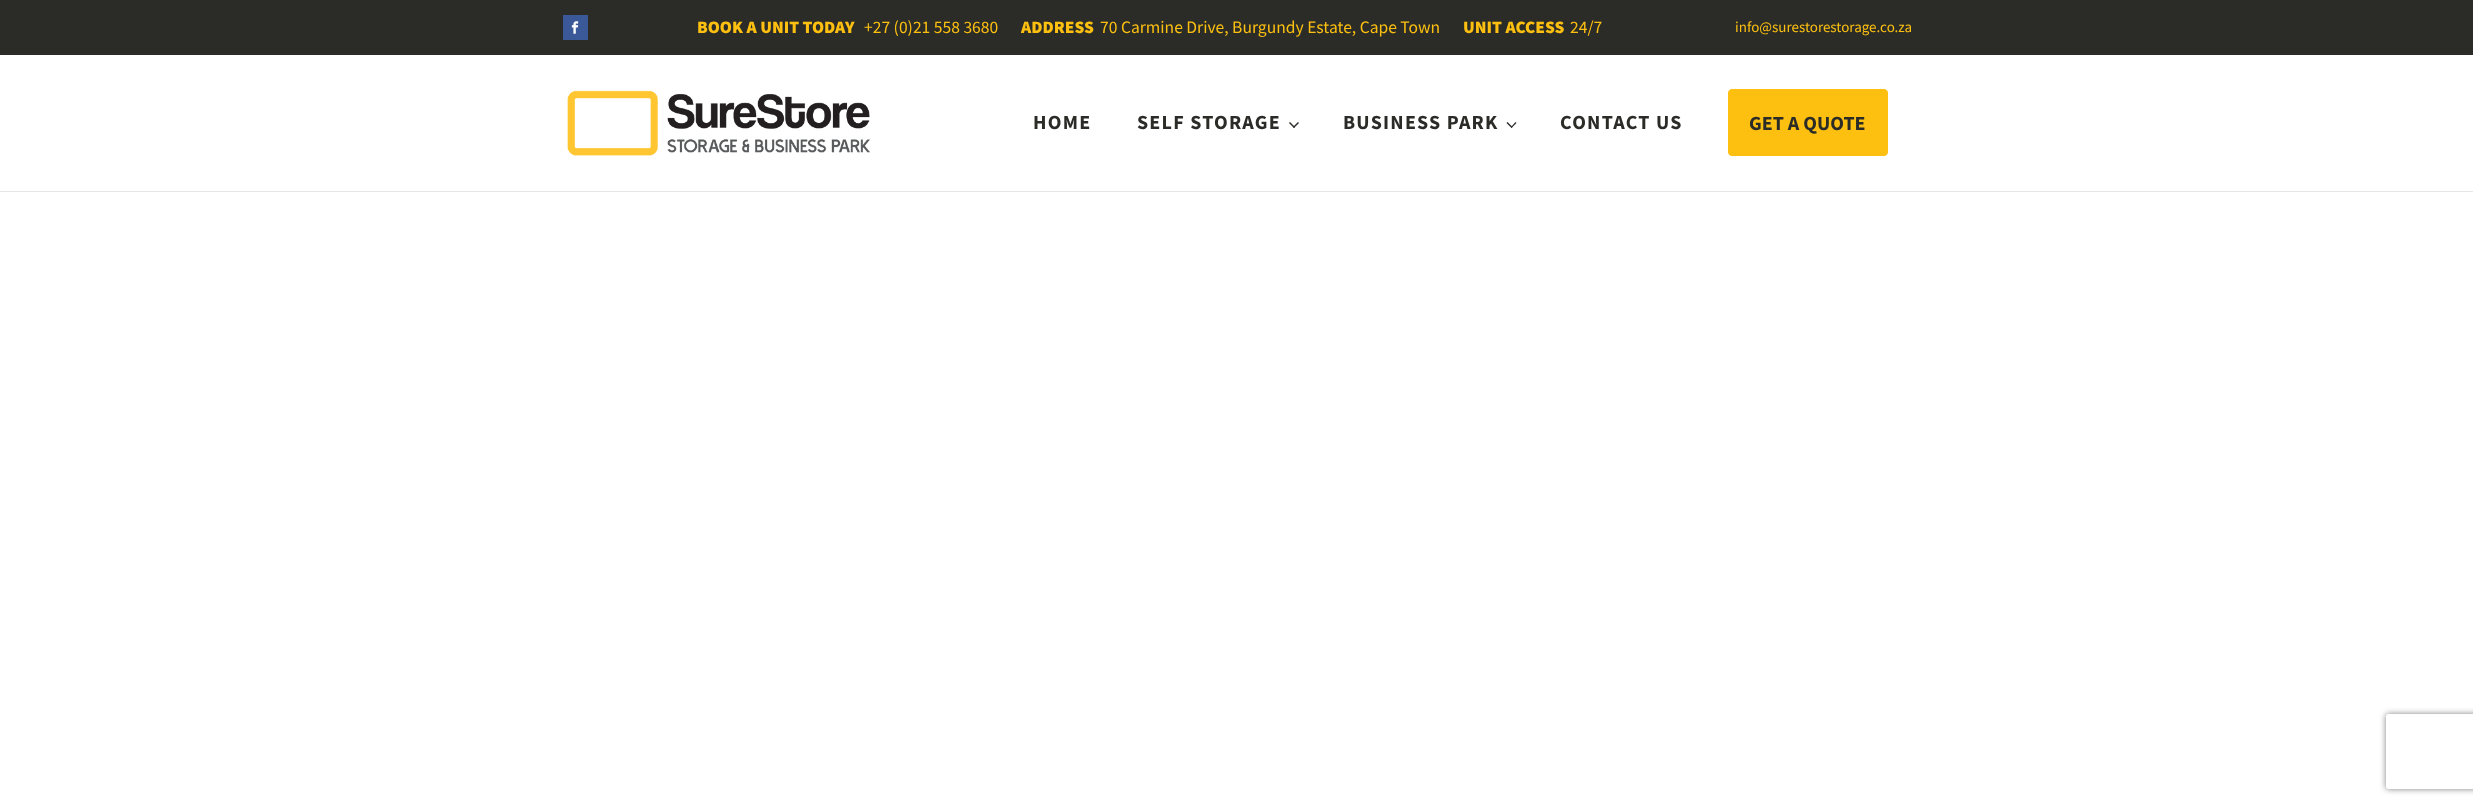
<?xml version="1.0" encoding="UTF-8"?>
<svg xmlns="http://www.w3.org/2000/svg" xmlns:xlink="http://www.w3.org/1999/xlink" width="2473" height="806">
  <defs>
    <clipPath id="clip1"><path d="M 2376 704 h 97 v 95 h -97 z m 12.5 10 h 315 c 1.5 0 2.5 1 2.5 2.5 v 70 c 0 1.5 -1 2.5 -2.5 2.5 h -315 c -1.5 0 -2.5 -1 -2.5 -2.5 v -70 c 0 -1.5 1 -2.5 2.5 -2.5 z" clip-rule="evenodd" /></clipPath>
  </defs>
  <rect width="100%" height="100%" fill="#ffffff" />
  <rect width="2473" height="55" fill="#2b2c28" />
  <rect x="563" y="15" width="25" height="25" fill="#3b5998" />
  <image x="571" y="21" width="8" height="13" xlink:href="image1.png" />
  <rect y="191" width="2473" height="1" fill="#e6e6e6" />
  <image x="567" y="90" width="303" height="66" xlink:href="image2.png" />
  <path d="M 1299 123 l -5 5 l -1 -1 l 5 -5 z" fill="#2b2c28" />
  <path d="M 1295 127 l -1 1 l -5 -5 l 1 -1 z" fill="#2b2c28" />
  <path d="M 1516.5 123 l -5 5 l -0.5 -1 l 4.5 -5 z" fill="#2b2c28" />
  <path d="M 1512.5 127 l -1 1 l -5 -5 l 1 -1 z" fill="#2b2c28" />
  <rect x="1728.5" y="89.5" width="159" height="66" rx="3.5" fill="#fdc010" stroke="#fdc010" />
  <g clip-path="url(#clip1)">
    <rect x="2386" y="714" width="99" height="75" rx="2.5" fill="#808080" filter="blur(3px)" />
  </g>
  <text x="697" y="33" style="font-family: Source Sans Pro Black; font-size: 17.5px; font-weight: 900; fill: #fdc010">BOOK A UNIT TODAY</text>
  <text x="864" y="33" style="font-family: Source Sans Pro; font-size: 17.5px; fill: #fdc010">+27 (0)21 558 3680</text>
  <text x="1021" y="33" style="font-family: Source Sans Pro Black; font-size: 17.5px; font-weight: 900; fill: #fdc010">ADDRESS</text>
  <text x="1100" y="33" style="font-family: Source Sans Pro; font-size: 17.5px; fill: #fdc010">70 Carmine Drive, Burgundy Estate, Cape Town</text>
  <text x="1463" y="33" style="font-family: Source Sans Pro Black; font-size: 17.5px; font-weight: 900; fill: #fdc010">UNIT ACCESS</text>
  <text x="1570" y="33" style="font-family: Source Sans Pro; font-size: 17.5px; fill: #fdc010">24/7</text>
  <text x="1735" y="32" style="font-family: Source Sans Pro; font-size: 15px; fill: #fdc010">info@surestorestorage.co.za</text>
  <text x="1033" y="129" style="font-family: Source Sans Pro; font-size: 20px; font-weight: bold; letter-spacing: 1.25px; fill: #2b2c28">HOME</text>
  <text x="1137" y="129" style="font-family: Source Sans Pro; font-size: 20px; font-weight: bold; letter-spacing: 1.25px; fill: #2b2c28">SELF STORAGE</text>
  <text x="1343" y="129" style="font-family: Source Sans Pro; font-size: 20px; font-weight: bold; letter-spacing: 1.25px; fill: #2b2c28">BUSINESS PARK</text>
  <text x="1560" y="129" style="font-family: Source Sans Pro; font-size: 20px; font-weight: bold; letter-spacing: 1.25px; fill: #2b2c28">CONTACT US</text>
  <text x="1749" y="130" style="font-family: Source Sans Pro; font-size: 20px; font-weight: bold; fill: #2b2c28">GET A QUOTE</text>
</svg>
